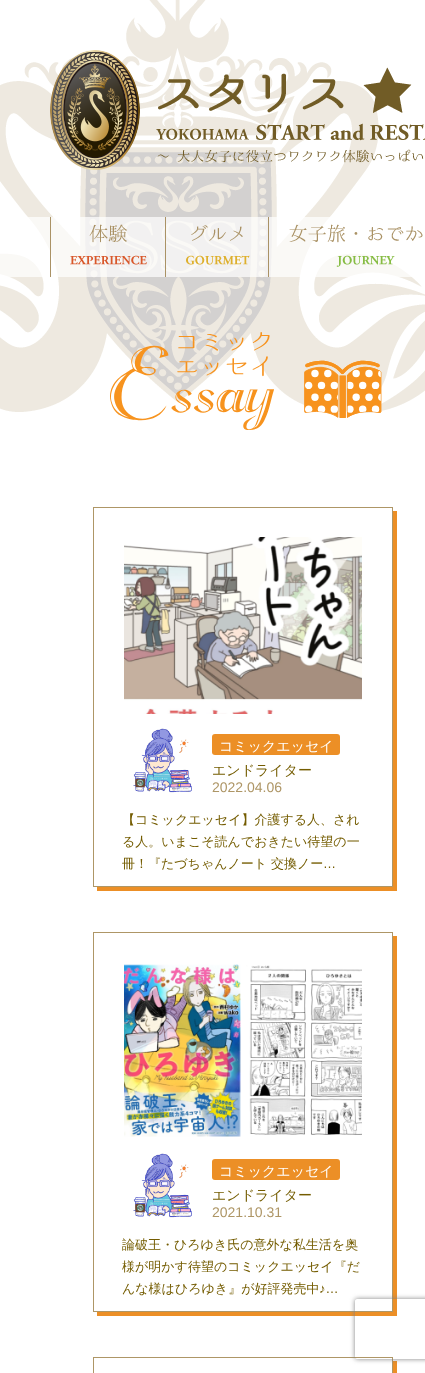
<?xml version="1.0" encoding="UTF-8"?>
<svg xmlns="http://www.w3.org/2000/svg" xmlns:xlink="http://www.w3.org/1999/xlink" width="425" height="1373">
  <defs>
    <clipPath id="clip1"><path d="M 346 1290 h 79 v 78 h -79 z m 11 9 h 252 c 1 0 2 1 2 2 v 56 c 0 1 -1 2 -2 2 h -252 c -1 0 -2 -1 -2 -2 v -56 c 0 -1 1 -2 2 -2 z" clip-rule="evenodd" /></clipPath>
  </defs>
  <rect width="100%" height="100%" fill="#ffffff" />
  <image x="0" y="0" width="425" height="413" xlink:href="image1.png" />
  <image x="50" y="50" width="90" height="120" xlink:href="image2.png" />
  <image x="156" y="67" width="269" height="96" xlink:href="image3.png" />
  <rect y="217" width="412" height="60" fill="#ffffff" fill-opacity="0.7" />
  <rect x="50" y="217" width="1" height="60" fill="#aa9265" />
  <image x="70" y="224" width="77" height="41" xlink:href="image4.png" />
  <rect x="165" y="217" width="1" height="60" fill="#aa9265" />
  <image x="186" y="225" width="64" height="40" xlink:href="image5.png" />
  <rect x="268" y="217" width="1" height="60" fill="#aa9265" />
  <image x="289" y="224" width="134" height="43" xlink:href="image6.png" />
  <image x="110" y="332" width="272" height="98" xlink:href="image7.png" />
  <path d="M 97 887 v 4 h 300 v -380 h -4 v 376 z" fill="#ec8f26" />
  <rect x="93.5" y="507.5" width="299" height="379" fill="none" stroke="#ae9666" />
  <image x="124" y="537" width="238" height="177" xlink:href="image8.png" />
  <image x="133" y="728" width="59" height="65" xlink:href="image9.png" />
  <rect x="212" y="734" width="128" height="21" rx="3" fill="#ec8f26" />
  <path d="M 97 1312 v 4 h 300 v -380 h -4 v 376 z" fill="#ec8f26" />
  <rect x="93.5" y="932.5" width="299" height="379" fill="none" stroke="#ae9666" />
  <image x="124" y="964" width="238" height="173" xlink:href="image10.png" />
  <image x="133" y="1153" width="59" height="65" xlink:href="image11.png" />
  <rect x="212" y="1159" width="128" height="21" rx="3" fill="#ec8f26" />
  <path d="M 97 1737 v 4 h 300 v -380 h -4 v 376 z" fill="#ec8f26" />
  <rect x="93.5" y="1357.5" width="299" height="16" fill="none" stroke="#ae9666" />
  <g clip-path="url(#clip1)">
    <rect x="355" y="1299" width="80" height="60" rx="2" fill="#808080" filter="blur(2.5px)" />
  </g>
  <text x="219" y="751" style="font-family: WenQuanYi Zen Hei; font-size: 14px; font-weight: 500; fill: #ffffff">コミックエッセイ</text>
  <text x="212" y="775" style="font-family: WenQuanYi Zen Hei; font-size: 14px; font-weight: 500; fill: #745c01">エンドライター</text>
  <text x="212" y="792" style="font-family: Liberation Sans; font-size: 14px; fill: #ae9666">2022.04.06</text>
  <text x="122" y="824" style="font-family: WenQuanYi Zen Hei; font-size: 13px; font-weight: 500; fill: #745c01">【コミックエッセイ】介護する人、され</text>
  <text x="122" y="846" style="font-family: WenQuanYi Zen Hei; font-size: 13px; font-weight: 500; fill: #745c01">る人。いまこそ読んでおきたい待望の一</text>
  <text x="122" y="868" style="font-family: WenQuanYi Zen Hei; font-size: 13px; font-weight: 500; fill: #745c01">冊！『たづちゃんノート 交換ノー</text>
  <text x="323" y="868" style="font-family: Liberation Sans; font-size: 13px; fill: #745c01">…</text>
  <text x="219" y="1176" style="font-family: WenQuanYi Zen Hei; font-size: 14px; font-weight: 500; fill: #ffffff">コミックエッセイ</text>
  <text x="212" y="1200" style="font-family: WenQuanYi Zen Hei; font-size: 14px; font-weight: 500; fill: #745c01">エンドライター</text>
  <text x="212" y="1217" style="font-family: Liberation Sans; font-size: 14px; fill: #ae9666">2021.10.31</text>
  <text x="122" y="1249" style="font-family: WenQuanYi Zen Hei; font-size: 13px; font-weight: 500; fill: #745c01">論破王・ひろゆき氏の意外な私生活を奥</text>
  <text x="122" y="1271" style="font-family: WenQuanYi Zen Hei; font-size: 13px; font-weight: 500; fill: #745c01">様が明かす待望のコミックエッセイ『だ</text>
  <text x="122" y="1293" style="font-family: WenQuanYi Zen Hei; font-size: 13px; font-weight: 500; fill: #745c01">んな様はひろゆき』が好評発売中</text>
  <text x="319" y="1293" style="font-family: Liberation Sans; font-size: 13px; fill: #745c01">♪…</text>
</svg>
